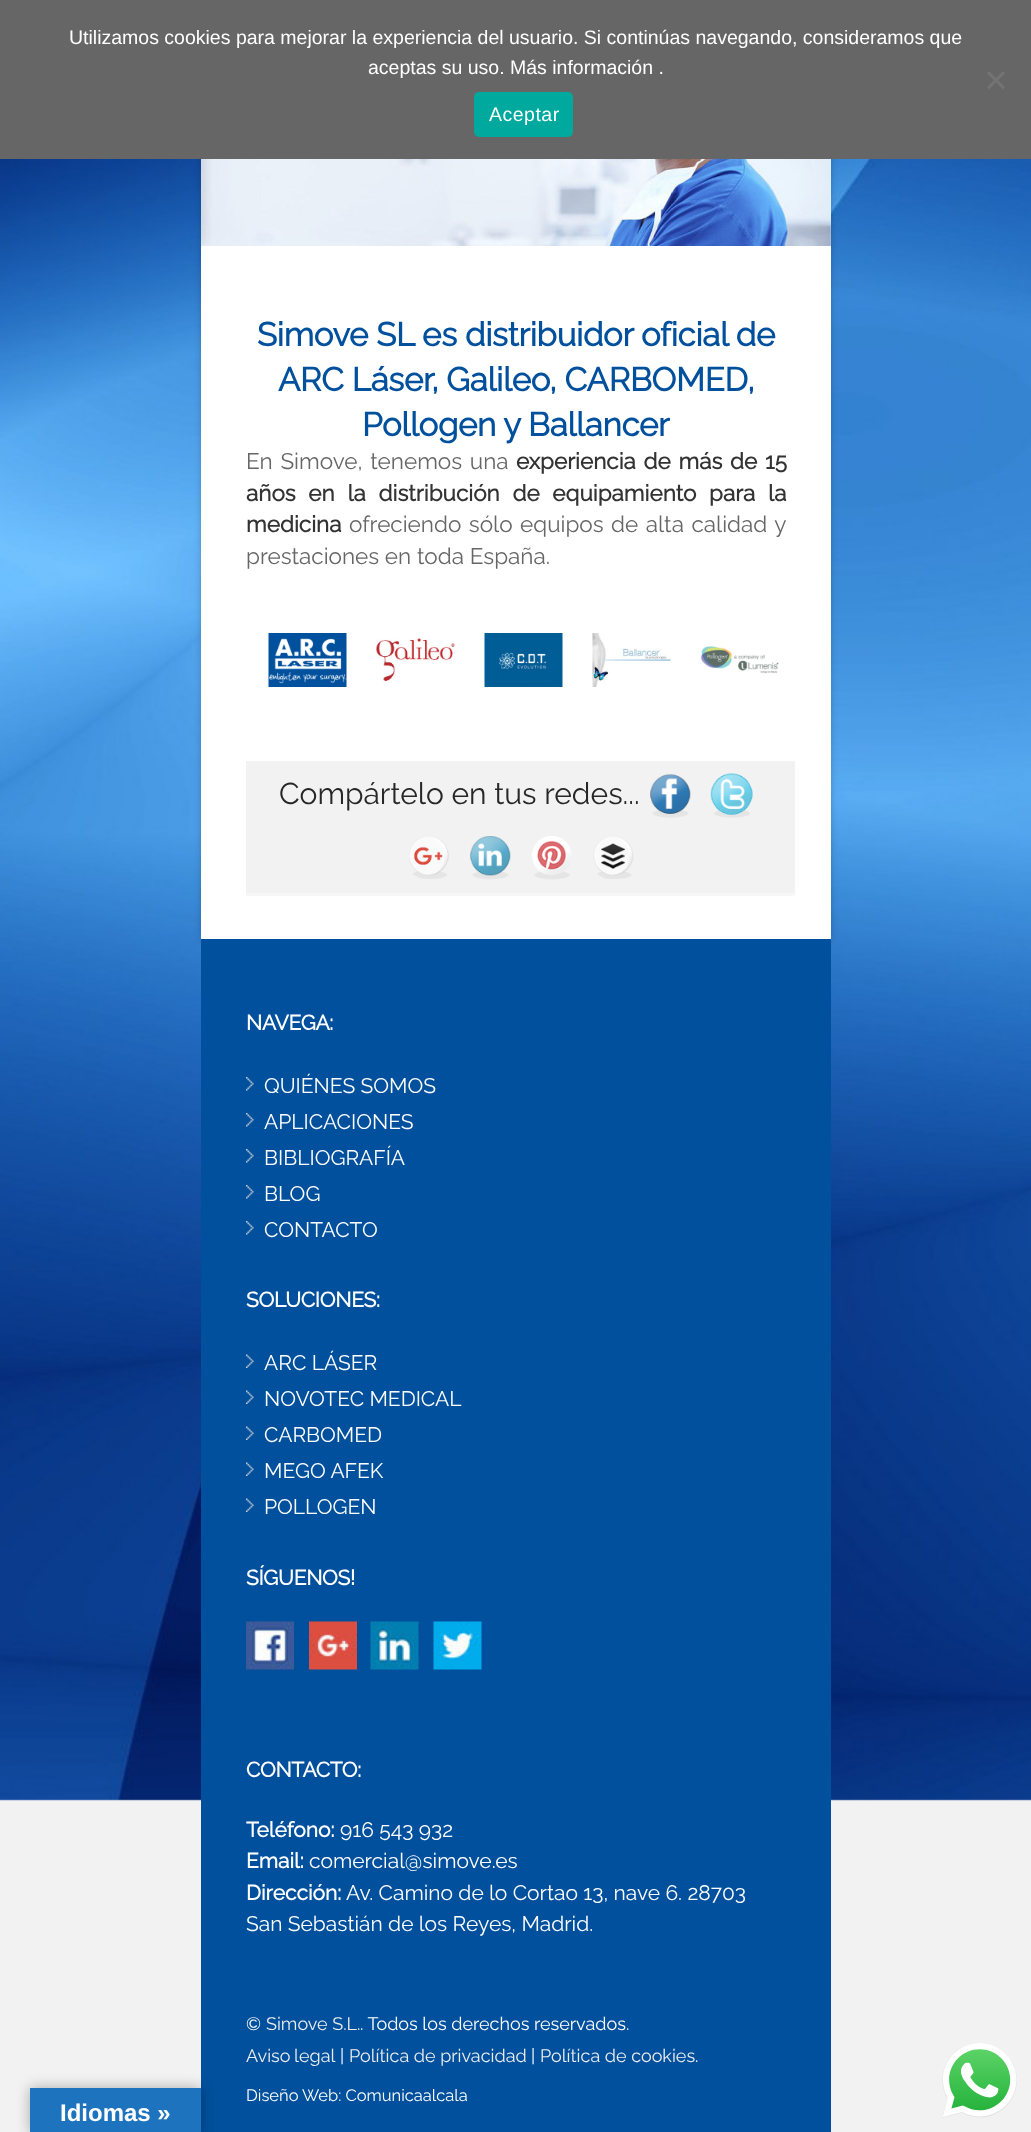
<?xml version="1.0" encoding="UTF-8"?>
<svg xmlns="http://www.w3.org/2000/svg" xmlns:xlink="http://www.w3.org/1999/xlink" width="1031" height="2132">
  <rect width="100%" height="100%" fill="#f2f2f2" />
  <image x="0" y="159" width="1031" height="1642" xlink:href="image1.png" />
  <rect x="201" y="-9" width="630" height="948" fill="#000000" fill-opacity="0.2" filter="blur(3px)" />
  <rect width="1031" height="159" fill="#666666" />
  <path d="M 1003 71 l 2 2.5 l -16 16 l -2 -2.5 z" fill="#737373" />
  <path d="M 987 73.5 l 2 -2.5 l 16 16 l -2 2.5 z" fill="#737373" />
  <rect x="474" y="92" width="99" height="45" rx="5" fill="#00a99d" />
  <rect x="201" y="159" width="630" height="780" fill="#ffffff" />
  <image x="201" y="159" width="630" height="87" xlink:href="image2.png" />
  <image x="268" y="633" width="79" height="54" xlink:href="image3.png" />
  <image x="376" y="637" width="79" height="45" xlink:href="image4.png" />
  <image x="484" y="633" width="79" height="54" xlink:href="image5.png" />
  <image x="592" y="633" width="79" height="54" xlink:href="image6.png" />
  <image x="700" y="645" width="79" height="29" xlink:href="image7.png" />
  <rect x="246" y="893" width="549" height="3" fill="#f7f7f7" />
  <rect x="246" y="761" width="549" height="132" fill="#f2f2f2" />
  <image x="650" y="774" width="41" height="44" xlink:href="image8.png" />
  <image x="710" y="773" width="43" height="45" xlink:href="image9.png" />
  <image x="409" y="837" width="40" height="42" xlink:href="image10.png" />
  <image x="470" y="836" width="41" height="44" xlink:href="image11.png" />
  <image x="531" y="836" width="41" height="44" xlink:href="image12.png" />
  <image x="593" y="837" width="41" height="42" xlink:href="image13.png" />
  <rect x="201" y="939" width="630" height="1193" fill="#01509d" />
  <image x="246" y="1077" width="8" height="14" xlink:href="image14.png" />
  <image x="246" y="1113" width="8" height="14" xlink:href="image14.png" />
  <image x="246" y="1149" width="8" height="14" xlink:href="image14.png" />
  <image x="246" y="1185" width="8" height="14" xlink:href="image14.png" />
  <image x="246" y="1221" width="8" height="14" xlink:href="image14.png" />
  <image x="246" y="1354" width="8" height="14" xlink:href="image15.png" />
  <image x="246" y="1390" width="8" height="14" xlink:href="image15.png" />
  <image x="246" y="1426" width="8" height="14" xlink:href="image15.png" />
  <image x="246" y="1462" width="8" height="14" xlink:href="image15.png" />
  <image x="246" y="1498" width="8" height="14" xlink:href="image15.png" />
  <image x="246" y="1621" width="48" height="49" xlink:href="image16.png" />
  <image x="309" y="1621" width="48" height="49" xlink:href="image17.png" />
  <image x="370" y="1621" width="49" height="49" xlink:href="image18.png" />
  <image x="433" y="1621" width="49" height="49" xlink:href="image19.png" />
  <rect x="30" y="2088" width="171" height="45" fill="#000000" fill-opacity="0.3" filter="blur(7px)" />
  <rect x="30" y="2088" width="171" height="44" fill="#1e73be" />
  <image x="942" y="2043" width="75" height="75" xlink:href="image20.png" />
  <text x="69" y="44" style="font-family: Liberation Sans; font-size: 19.5px; fill: #ffffff">Utilizamos cookies para mejorar la experiencia del usuario. Si continúas navegando, consideramos que</text>
  <text x="368" y="74" style="font-family: Liberation Sans; font-size: 19.5px; fill: #ffffff">aceptas su uso. Más información .</text>
  <text x="489" y="121" style="font-family: Liberation Sans; font-size: 19.5px; letter-spacing: 0.5px; fill: #ffffff">Aceptar</text>
  <text x="257" y="346" style="font-family: Raleway; font-size: 33px; font-weight: bold; letter-spacing: -0.3px; fill: #01509d">Simove SL es distribuidor oficial de</text>
  <text x="278" y="391" style="font-family: Raleway; font-size: 33px; font-weight: bold; letter-spacing: -0.3px; fill: #01509d">ARC Láser, Galileo, CARBOMED,</text>
  <text x="362" y="436" style="font-family: Raleway; font-size: 33px; font-weight: bold; letter-spacing: -0.3px; fill: #01509d">Pollogen y Ballancer</text>
  <text x="246" y="469" word-spacing="2" style="font-family: Raleway; font-size: 22.5px; font-weight: 100; fill: #666666">En Simove, tenemos una</text>
  <text x="516" y="469" word-spacing="2" style="font-family: Raleway; font-size: 22.5px; font-weight: bold; fill: #333333">experiencia de más de 15</text>
  <text x="246" y="501" word-spacing="7" style="font-family: Raleway; font-size: 22.5px; font-weight: bold; fill: #333333">años en la distribución de equipamiento para la</text>
  <text x="246" y="532" style="font-family: Raleway; font-size: 22.5px; font-weight: bold; fill: #333333">medicina</text>
  <text x="349" y="532" word-spacing="1.75" style="font-family: Raleway; font-size: 22.5px; font-weight: 100; fill: #666666">ofreciendo sólo equipos de alta calidad y</text>
  <text x="246" y="564" style="font-family: Raleway; font-size: 22.5px; font-weight: 100; fill: #666666">prestaciones en toda España.</text>
  <text x="279" y="804" style="font-family: Raleway; font-size: 30px; font-weight: 100; fill: #272727">Compártelo en tus redes...</text>
  <text x="246" y="1030" style="font-family: Raleway; font-size: 21px; font-weight: bold; letter-spacing: -0.3px; fill: #ffffff">NAVEGA:</text>
  <text x="264" y="1093" style="font-family: Raleway; font-size: 21px; font-weight: 100; fill: #ffffff">QUIÉNES SOMOS</text>
  <text x="264" y="1129" style="font-family: Raleway; font-size: 21px; font-weight: 100; fill: #ffffff">APLICACIONES</text>
  <text x="264" y="1165" style="font-family: Raleway; font-size: 21px; font-weight: 100; fill: #ffffff">BIBLIOGRAFÍA</text>
  <text x="264" y="1201" style="font-family: Raleway; font-size: 21px; font-weight: 100; fill: #ffffff">BLOG</text>
  <text x="264" y="1237" style="font-family: Raleway; font-size: 21px; font-weight: 100; fill: #ffffff">CONTACTO</text>
  <text x="246" y="1307" style="font-family: Raleway; font-size: 21px; font-weight: bold; letter-spacing: -0.3px; fill: #ffffff">SOLUCIONES:</text>
  <text x="264" y="1370" style="font-family: Raleway; font-size: 21px; font-weight: 100; fill: #ffffff">ARC LÁSER</text>
  <text x="264" y="1406" style="font-family: Raleway; font-size: 21px; font-weight: 100; fill: #ffffff">NOVOTEC MEDICAL</text>
  <text x="264" y="1442" style="font-family: Raleway; font-size: 21px; font-weight: 100; fill: #ffffff">CARBOMED</text>
  <text x="264" y="1478" style="font-family: Raleway; font-size: 21px; font-weight: 100; fill: #ffffff">MEGO AFEK</text>
  <text x="264" y="1514" style="font-family: Raleway; font-size: 21px; font-weight: 100; fill: #ffffff">POLLOGEN</text>
  <text x="246" y="1585" style="font-family: Raleway; font-size: 21px; font-weight: bold; letter-spacing: -0.3px; fill: #ffffff">SÍGUENOS!</text>
  <text x="246" y="1777" style="font-family: Raleway; font-size: 21px; font-weight: bold; letter-spacing: -0.3px; fill: #ffffff">CONTACTO:</text>
  <text x="246" y="1837" style="font-family: Raleway; font-size: 21px; font-weight: bold; fill: #ffffff">Teléfono:</text>
  <text x="340" y="1837" style="font-family: Raleway; font-size: 21px; font-weight: 100; fill: #ffffff">916 543 932</text>
  <text x="246" y="1868" style="font-family: Raleway; font-size: 21px; font-weight: bold; fill: #ffffff">Email:</text>
  <text x="309" y="1868" style="font-family: Raleway; font-size: 21px; font-weight: 100; fill: #ffffff">comercial@simove.es</text>
  <text x="246" y="1900" style="font-family: Raleway; font-size: 21px; font-weight: bold; fill: #ffffff">Dirección:</text>
  <text x="346" y="1900" style="font-family: Raleway; font-size: 21px; font-weight: 100; fill: #ffffff">Av. Camino de lo Cortao 13, nave 6. 28703</text>
  <text x="246" y="1931" style="font-family: Raleway; font-size: 21px; font-weight: 100; fill: #ffffff">San Sebastián de los Reyes, Madrid.</text>
  <text x="60" y="2121" style="font-family: Liberation Sans; font-size: 24px; font-weight: bold; fill: #ffffff">Idiomas »</text>
  <text x="246" y="2030" style="font-family: Raleway; font-size: 18px; font-weight: 100; fill: #ffffff">©</text>
  <text x="266" y="2030" style="font-family: Raleway; font-size: 18px; font-weight: 100; fill: #eeeeee">Simove S.L.</text>
  <text x="360" y="2030" style="font-family: Raleway; font-size: 18px; font-weight: 100; fill: #ffffff">. Todos los derechos reservados.</text>
  <text x="246" y="2062" word-spacing="-1" style="font-family: Raleway; font-size: 18px; font-weight: 100; fill: #eeeeee">Aviso legal</text>
  <text x="340" y="2062" style="font-family: Raleway; font-size: 18px; font-weight: 100; fill: #ffffff">|</text>
  <text x="349" y="2062" style="font-family: Raleway; font-size: 18px; font-weight: 100; fill: #eeeeee">Política de privacidad</text>
  <text x="531" y="2062" style="font-family: Raleway; font-size: 18px; font-weight: 100; fill: #ffffff">|</text>
  <text x="540" y="2062" style="font-family: Raleway; font-size: 18px; font-weight: 100; fill: #eeeeee">Política de cookies</text>
  <text x="695" y="2062" style="font-family: Raleway; font-size: 18px; font-weight: 100; fill: #ffffff">.</text>
  <text x="246" y="2101" style="font-family: Raleway; font-size: 16.5px; font-weight: 100; fill: #ffffff">Diseño Web: Comunicaalcala</text>
</svg>
